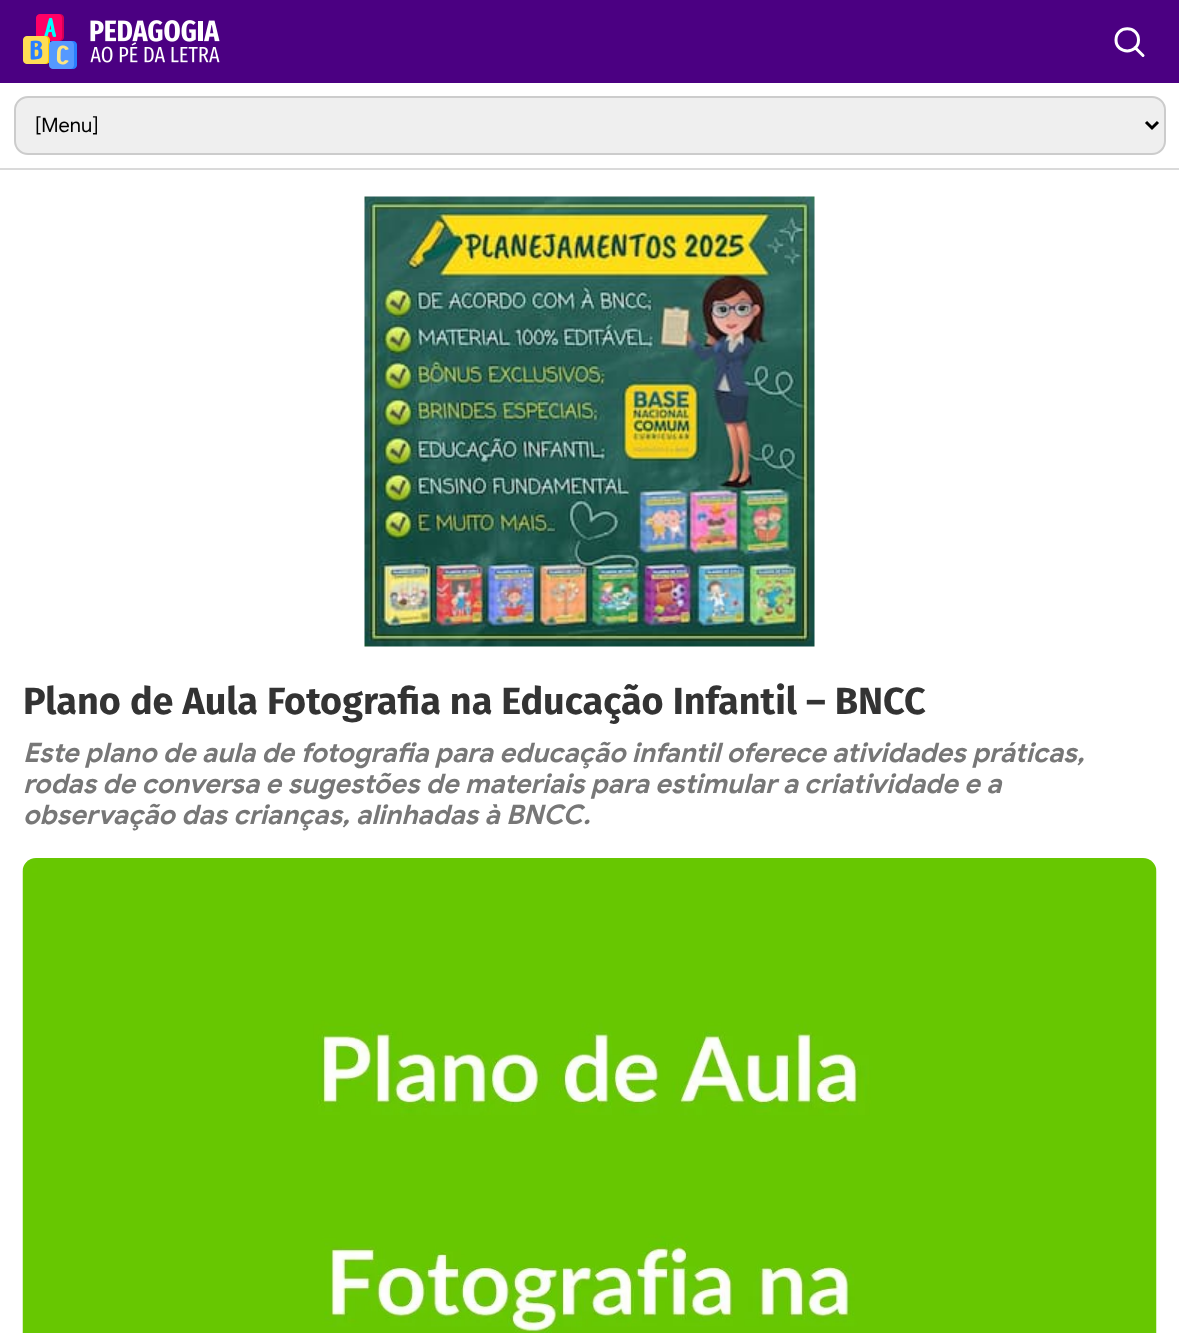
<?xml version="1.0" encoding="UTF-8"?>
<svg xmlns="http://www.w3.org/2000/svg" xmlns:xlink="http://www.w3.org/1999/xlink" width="1179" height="1333">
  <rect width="100%" height="100%" fill="#ffffff" />
  <rect width="1179" height="83" fill="#4b0082" />
  <image x="23" y="14" width="197" height="55" xlink:href="image1.png" />
  <path d="M 1135 47.5 l 8 8 m -4.5 -15.5 c 0 14.5 -22.5 14.5 -22.5 0 c 0 -15 22.5 -15 22.5 0 z" fill="none" stroke="#ffffff" stroke-width="3" stroke-linecap="round" stroke-linejoin="round" />
  <rect y="168" width="1179" height="2" fill="#dadada" />
  <rect x="15" y="97" width="1150" height="57" rx="13" fill="#efefef" stroke="#cccccc" stroke-width="2" />
  <path d="M 1146 122 l 6 6 l 6 -6" fill="none" stroke="#000000" stroke-width="3" />
  <image x="364" y="196" width="451" height="451" xlink:href="image2.png" />
  <image x="22" y="858" width="1135" height="475" xlink:href="image3.png" />
  <text x="35" y="132" style="font-family: Google Sans; font-size: 20px; fill: #000000">[Menu]</text>
  <text x="23" y="714" style="font-family: Fira Sans; font-size: 37.8px; font-weight: bold; fill: #333333">Plano de Aula Fotografia na Educação Infantil – BNCC</text>
  <text x="23" y="762" style="font-family: Google Sans; font-size: 27px; font-weight: bold; font-style: italic; fill: #777777">Este plano de aula de fotografia para educação infantil oferece atividades práticas,</text>
  <text x="23" y="793" style="font-family: Google Sans; font-size: 27px; font-weight: bold; font-style: italic; fill: #777777">rodas de conversa e sugestões de materiais para estimular a criatividade e a</text>
  <text x="23" y="824" style="font-family: Google Sans; font-size: 27px; font-weight: bold; font-style: italic; fill: #777777">observação das crianças, alinhadas à BNCC.</text>
</svg>
